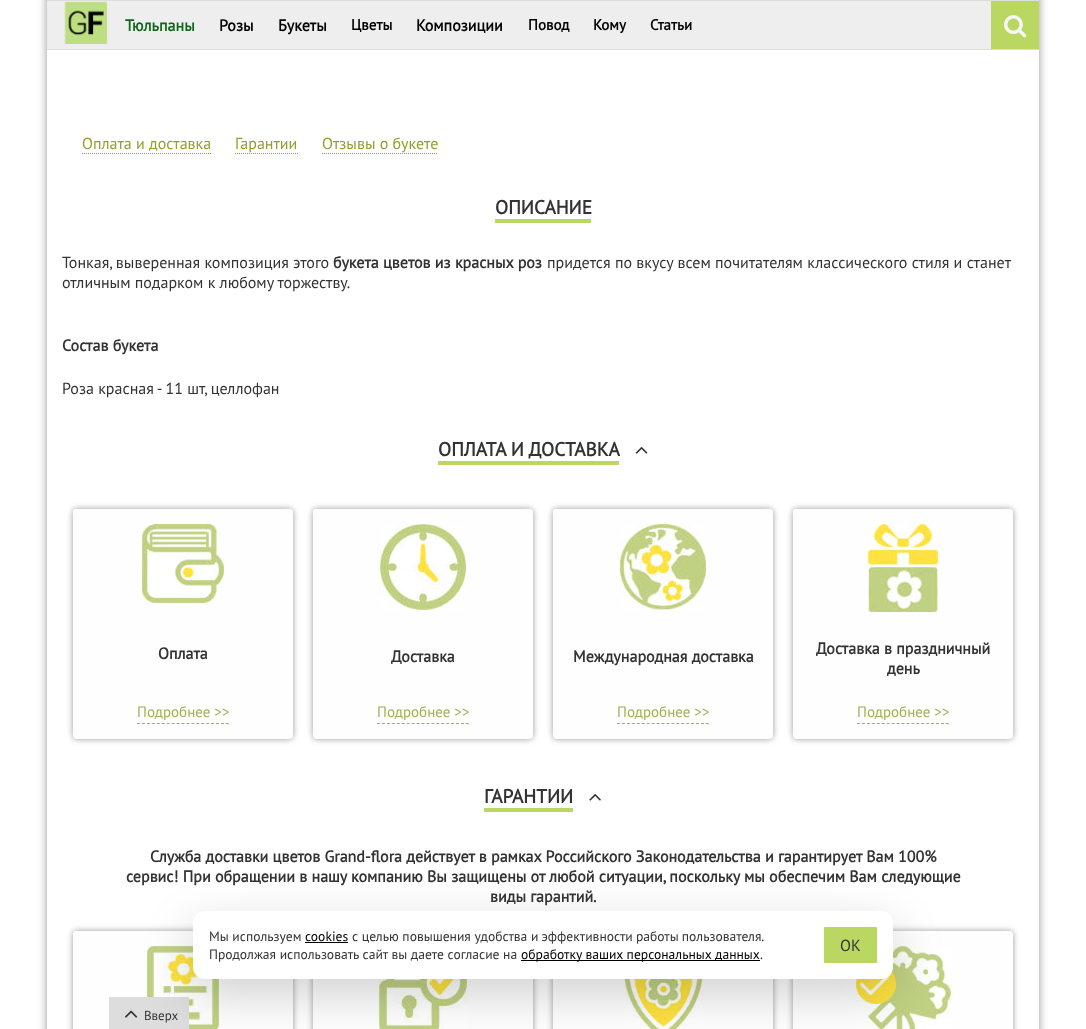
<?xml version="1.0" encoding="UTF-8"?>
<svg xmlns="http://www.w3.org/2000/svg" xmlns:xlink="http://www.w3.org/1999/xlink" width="1086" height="1029">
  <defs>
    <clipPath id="clip1"><path d="M 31 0 h 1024 v 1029 h -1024 z m 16 -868 h 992 v 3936 h -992 z" clip-rule="evenodd" /></clipPath>
  </defs>
  <rect width="100%" height="100%" fill="#ffffff" />
  <g clip-path="url(#clip1)">
    <rect x="47" y="-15" width="992" height="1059" fill="#323232" fill-opacity="0.5" filter="blur(5px)" />
  </g>
  <rect x="47" y="1" width="944" height="48" fill="#eeeeee" />
  <rect x="47" width="992" height="1" fill="#dddddd" />
  <rect x="47" y="49" width="992" height="1" fill="#dddddd" />
  <image x="64" y="1" width="44" height="43" xlink:href="image1.png" />
  <rect x="991" y="1" width="48" height="48" fill="#bad761" />
  <image x="1004" y="15" width="23" height="23" xlink:href="image2.png" />
  <path d="M 82 153.5 h 129" fill="none" stroke="#939e2b" stroke-dasharray="1 1" />
  <path d="M 235 153.5 h 63" fill="none" stroke="#939e2b" stroke-dasharray="1 1" />
  <path d="M 322 153.5 h 116" fill="none" stroke="#939e2b" stroke-dasharray="1 1" />
  <rect x="495" y="219" width="96" height="4" fill="#bad761" />
  <rect x="438" y="461" width="181" height="4" fill="#bad761" />
  <image x="635" y="447" width="13" height="7" xlink:href="image3.png" />
  <rect x="73" y="509" width="220" height="230" rx="4" fill="#000000" fill-opacity="0.4" filter="blur(3px)" />
  <rect x="73" y="509" width="220" height="230" rx="4" fill="#fefefe" />
  <path d="M 77 510 h 212 c 2 0 4 2 4 4 c 0 -3 -1 -5 -4 -5 h -214 c -2 1 -2 3 -2 5 c 0 -2 2 -4 4 -4 z" fill="#ffffff" />
  <image x="142" y="524" width="82" height="79" xlink:href="image4.png" />
  <path d="M 137 723.5 h 92" fill="none" stroke="#9cb250" stroke-dasharray="3 1.94" />
  <rect x="313" y="509" width="220" height="230" rx="4" fill="#000000" fill-opacity="0.4" filter="blur(3px)" />
  <rect x="313" y="509" width="220" height="230" rx="4" fill="#fefefe" />
  <path d="M 317 510 h 212 c 2 0 4 2 4 4 c 0 -3 -1 -5 -4 -5 h -214 c -2 1 -2 3 -2 5 c 0 -2 2 -4 4 -4 z" fill="#ffffff" />
  <image x="380" y="524" width="86" height="86" xlink:href="image5.png" />
  <path d="M 377 723.5 h 92" fill="none" stroke="#9cb250" stroke-dasharray="3 1.94" />
  <rect x="553" y="509" width="220" height="230" rx="4" fill="#000000" fill-opacity="0.4" filter="blur(3px)" />
  <rect x="553" y="509" width="220" height="230" rx="4" fill="#fefefe" />
  <path d="M 557 510 h 212 c 2 0 4 2 4 4 c 0 -3 -1 -5 -4 -5 h -214 c -2 1 -2 3 -2 5 c 0 -2 2 -4 4 -4 z" fill="#ffffff" />
  <image x="620" y="524" width="86" height="86" xlink:href="image6.png" />
  <path d="M 617 723.5 h 92" fill="none" stroke="#9cb250" stroke-dasharray="3 1.94" />
  <rect x="793" y="509" width="220" height="230" rx="4" fill="#000000" fill-opacity="0.4" filter="blur(3px)" />
  <rect x="793" y="509" width="220" height="230" rx="4" fill="#fefefe" />
  <path d="M 797 510 h 212 c 2 0 4 2 4 4 c 0 -3 -1 -5 -4 -5 h -214 c -2 1 -2 3 -2 5 c 0 -2 2 -4 4 -4 z" fill="#ffffff" />
  <image x="868" y="524" width="70" height="88" xlink:href="image7.png" />
  <path d="M 857 723.5 h 92" fill="none" stroke="#9cb250" stroke-dasharray="3 1.94" />
  <rect x="484" y="808" width="89" height="4" fill="#bad761" />
  <image x="589" y="793" width="12" height="8" xlink:href="image8.png" />
  <rect x="73" y="931" width="220" height="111" rx="4" fill="#000000" fill-opacity="0.4" filter="blur(3px)" />
  <rect x="73" y="931" width="220" height="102" rx="4" fill="#fefefe" />
  <path d="M 77 932 h 212 c 2 0 4 2 4 4 c 0 -3 -1 -5 -4 -5 h -214 c -2 1 -2 3 -2 5 c 0 -2 2 -4 4 -4 z" fill="#ffffff" />
  <image x="147" y="946" width="72" height="83" xlink:href="image9.png" />
  <rect x="313" y="931" width="220" height="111" rx="4" fill="#000000" fill-opacity="0.4" filter="blur(3px)" />
  <rect x="313" y="979" width="220" height="50" fill="#fefefe" />
  <image x="379" y="979" width="88" height="50" xlink:href="image10.png" />
  <rect x="553" y="931" width="220" height="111" rx="4" fill="#000000" fill-opacity="0.4" filter="blur(3px)" />
  <rect x="553" y="979" width="220" height="50" fill="#fefefe" />
  <image x="624" y="979" width="79" height="50" xlink:href="image11.png" />
  <rect x="793" y="931" width="220" height="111" rx="4" fill="#000000" fill-opacity="0.4" filter="blur(3px)" />
  <rect x="793" y="931" width="220" height="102" rx="4" fill="#fefefe" />
  <path d="M 797 932 h 212 c 2 0 4 2 4 4 c 0 -3 -1 -5 -4 -5 h -214 c -2 1 -2 3 -2 5 c 0 -2 2 -4 4 -4 z" fill="#ffffff" />
  <image x="856" y="946" width="95" height="83" xlink:href="image12.png" />
  <rect x="109" y="997" width="80" height="32" fill="#dddddd" />
  <image x="125" y="1010" width="13" height="8" xlink:href="image13.png" />
  <rect x="193" y="927" width="700" height="68" rx="12" fill="#000000" fill-opacity="0.18" filter="blur(24px)" />
  <rect x="193" y="911" width="700" height="68" rx="12" fill="#ffffff" />
  <rect x="305" y="942" width="43" height="1" fill="#000000" />
  <rect x="521" y="960" width="239" height="1" fill="#000000" />
  <rect x="824" y="927" width="53" height="36" rx="1" fill="#bad761" />
  <text x="125" y="31" style="font-family: PT Sans; font-size: 16px; font-weight: bold; fill: #0e6718">Тюльпаны</text>
  <text x="219" y="31" style="font-family: PT Sans; font-size: 16px; font-weight: bold; fill: #000000">Розы</text>
  <text x="278" y="31" style="font-family: PT Sans; font-size: 16px; font-weight: bold; fill: #000000">Букеты</text>
  <text x="351" y="30" style="font-family: PT Sans; font-size: 15px; font-weight: bold; fill: #000000">Цветы</text>
  <text x="416" y="31" style="font-family: PT Sans; font-size: 16px; font-weight: bold; fill: #000000">Композиции</text>
  <text x="528" y="30" style="font-family: PT Sans; font-size: 15px; font-weight: bold; fill: #000000">Повод</text>
  <text x="593" y="30" style="font-family: PT Sans; font-size: 15px; font-weight: bold; fill: #000000">Кому</text>
  <text x="650" y="30" style="font-family: PT Sans; font-size: 15px; font-weight: bold; fill: #000000">Статьи</text>
  <text x="82" y="149" style="font-family: PT Sans; font-size: 16px; fill: #939e2b">Оплата и доставка</text>
  <text x="235" y="149" style="font-family: PT Sans; font-size: 16px; fill: #939e2b">Гарантии</text>
  <text x="322" y="149" style="font-family: PT Sans; font-size: 16px; fill: #939e2b">Отзывы о букете</text>
  <text x="495" y="214" style="font-family: PT Sans; font-size: 19.25px; font-weight: bold; fill: #333333">ОПИСАНИЕ</text>
  <text x="62" y="268" style="font-family: PT Sans; font-size: 16px; fill: #333333">Тонкая, выверенная композиция этого</text>
  <text x="333" y="268" style="font-family: PT Sans; font-size: 16px; font-weight: bold; fill: #333333">букета цветов из красных роз</text>
  <text x="547" y="268" style="font-family: PT Sans; font-size: 16px; fill: #333333">придется по вкусу всем почитателям классического стиля и станет</text>
  <text x="62" y="288" style="font-family: PT Sans; font-size: 16px; fill: #333333">отличным подарком к любому торжеству.</text>
  <text x="62" y="351" style="font-family: PT Sans; font-size: 16px; font-weight: bold; fill: #333333">Состав букета</text>
  <text x="62" y="394" style="font-family: PT Sans; font-size: 16px; fill: #333333">Роза красная - 11 шт, целлофан</text>
  <text x="438" y="456" style="font-family: PT Sans; font-size: 19.25px; font-weight: bold; fill: #333333">ОПЛАТА И ДОСТАВКА</text>
  <text x="158" y="659" style="font-family: PT Sans; font-size: 16px; font-weight: bold; fill: #333333">Оплата</text>
  <text x="137" y="717" style="font-family: PT Sans; font-size: 15px; fill: #9cb250">Подробнее &gt;&gt;</text>
  <text x="391" y="662" style="font-family: PT Sans; font-size: 16px; font-weight: bold; fill: #333333">Доставка</text>
  <text x="377" y="717" style="font-family: PT Sans; font-size: 15px; fill: #9cb250">Подробнее &gt;&gt;</text>
  <text x="573" y="662" style="font-family: PT Sans; font-size: 16px; font-weight: bold; fill: #333333">Международная доставка</text>
  <text x="617" y="717" style="font-family: PT Sans; font-size: 15px; fill: #9cb250">Подробнее &gt;&gt;</text>
  <text x="816" y="654" style="font-family: PT Sans; font-size: 16px; font-weight: bold; fill: #333333">Доставка в праздничный</text>
  <text x="887" y="674" style="font-family: PT Sans; font-size: 16px; font-weight: bold; fill: #333333">день</text>
  <text x="857" y="717" style="font-family: PT Sans; font-size: 15px; fill: #9cb250">Подробнее &gt;&gt;</text>
  <text x="484" y="803" style="font-family: PT Sans; font-size: 19.25px; font-weight: bold; fill: #333333">ГАРАНТИИ</text>
  <text x="150" y="862" style="font-family: PT Sans; font-size: 16px; font-weight: bold; fill: #333333">Служба доставки цветов Grand-flora действует в рамках Российского Законодательства и гарантирует Вам 100%</text>
  <text x="126" y="882" style="font-family: PT Sans; font-size: 16px; font-weight: bold; fill: #333333">сервис! При обращении в нашу компанию Вы защищены от любой ситуации, поскольку мы обеспечим Вам следующие</text>
  <text x="490" y="902" style="font-family: PT Sans; font-size: 16px; font-weight: bold; fill: #333333">виды гарантий.</text>
  <text x="209" y="941" style="font-family: PT Sans; font-size: 13.6px; fill: #333333">Мы используем</text>
  <text x="305" y="941" style="font-family: PT Sans; font-size: 13.6px; fill: #000000">cookies</text>
  <text x="352" y="941" style="font-family: PT Sans; font-size: 13.6px; fill: #333333">с целью повышения удобства</text>
  <text x="531" y="941" word-spacing="-0.5" style="font-family: PT Sans; font-size: 13.6px; fill: #333333">и эффективности работы пользователя.</text>
  <text x="209" y="959" style="font-family: PT Sans; font-size: 13.6px; fill: #333333">Продолжая использовать сайт вы даете согласие на</text>
  <text x="521" y="959" style="font-family: PT Sans; font-size: 13.6px; fill: #000000">обработку ваших персональных данных</text>
  <text x="760" y="959" style="font-family: PT Sans; font-size: 13.6px; fill: #333333">.</text>
  <text x="840" y="951" style="font-family: PT Sans; font-size: 16px; fill: #333333">OK</text>
  <text x="144" y="1020" style="font-family: PT Sans; font-size: 13px; fill: #333333">Вверх</text>
</svg>
